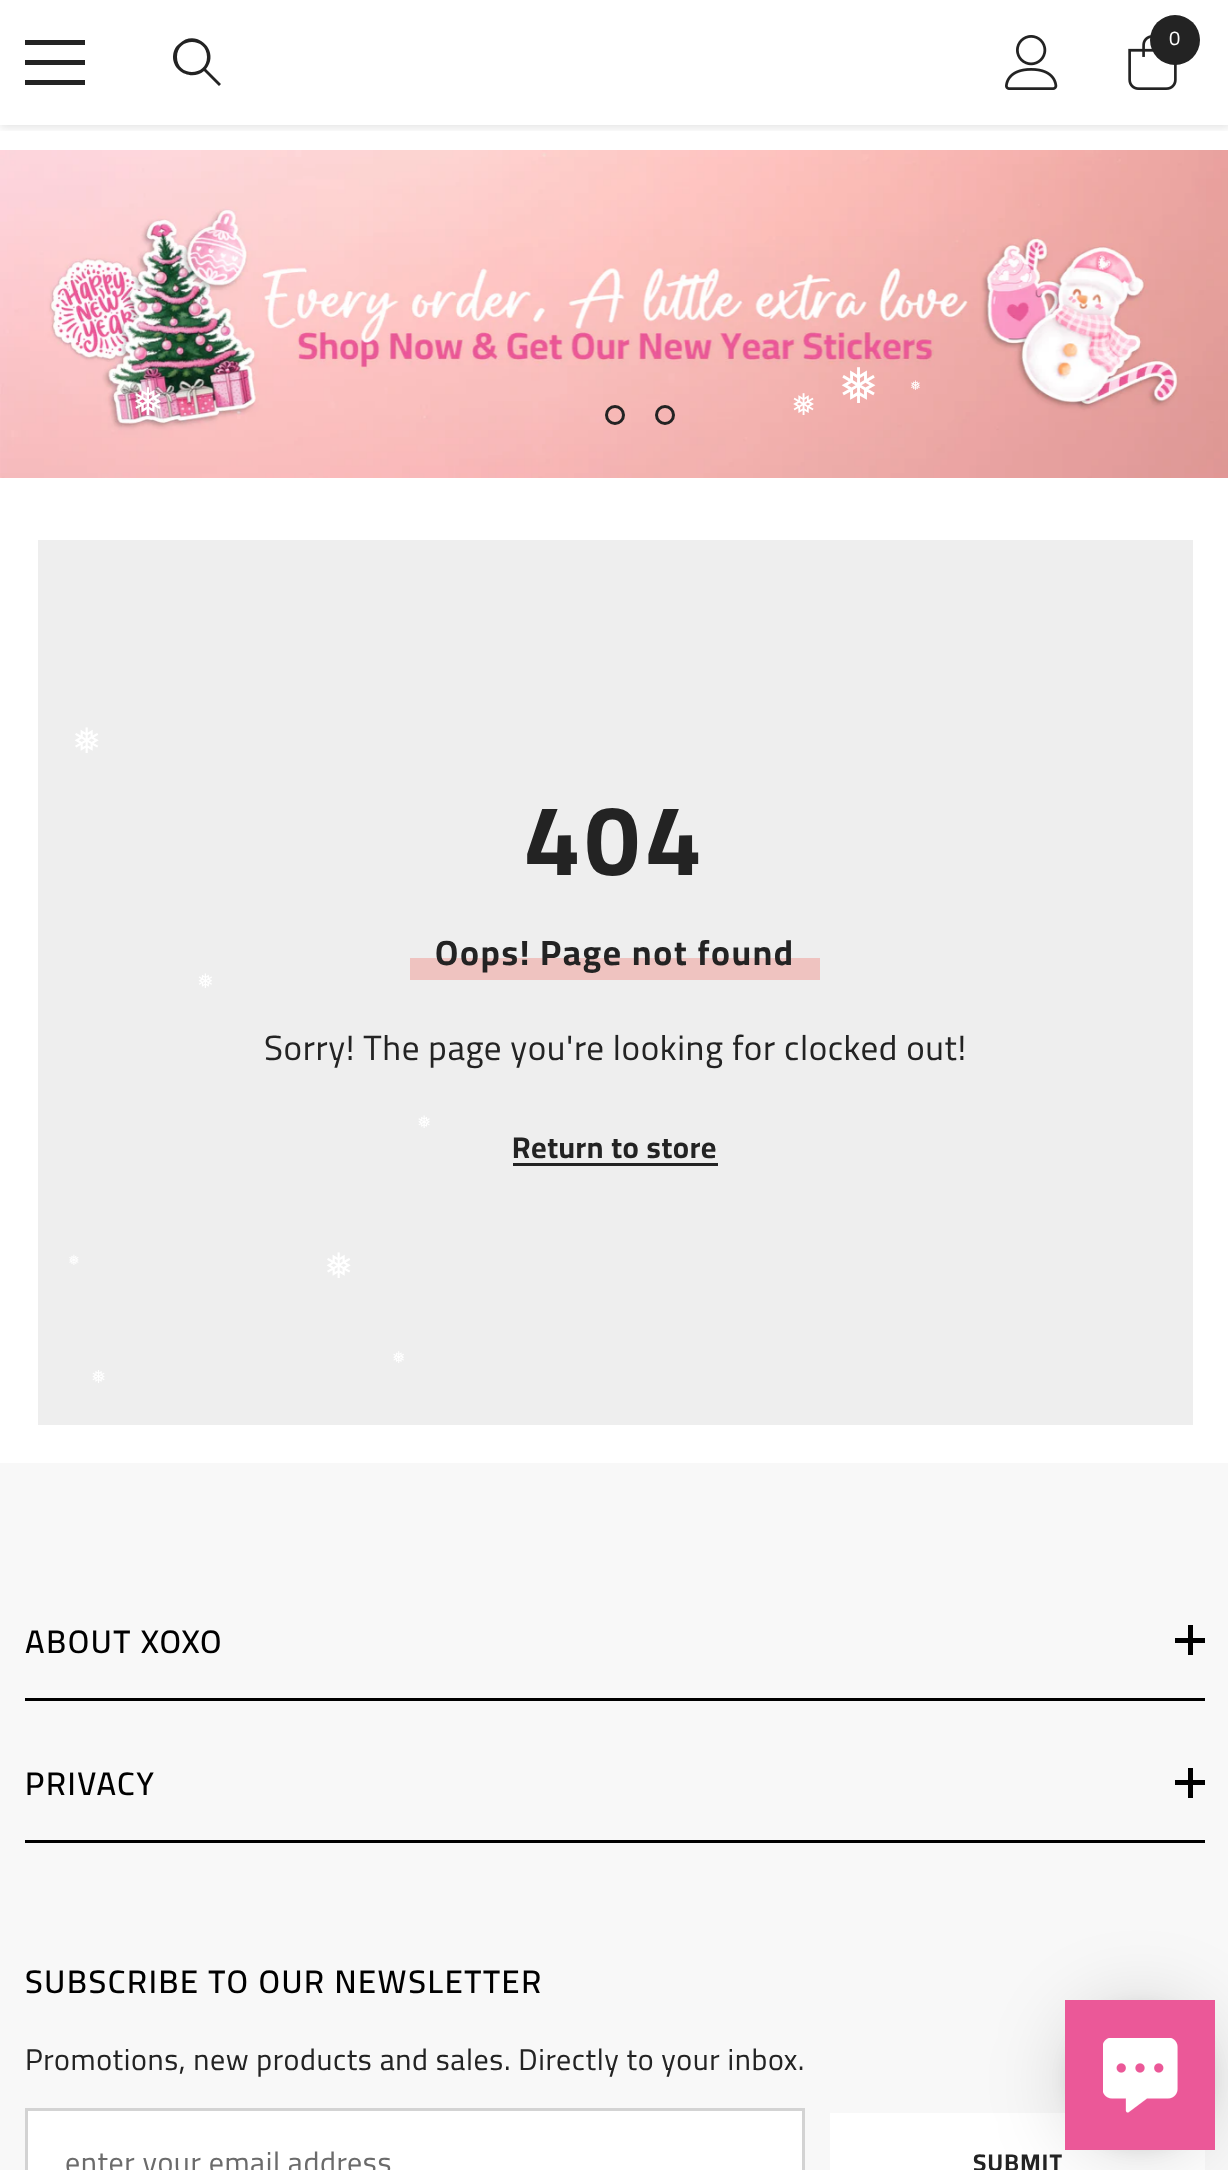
<?xml version="1.0" encoding="UTF-8"?>
<svg xmlns="http://www.w3.org/2000/svg" xmlns:xlink="http://www.w3.org/1999/xlink" width="1228" height="2170">
  <defs>
    <clipPath id="clip1"><rect x="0" y="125" width="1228" height="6" /></clipPath>
  </defs>
  <rect width="100%" height="100%" fill="#ffffff" />
  <g clip-path="url(#clip1)">
    <rect y="3" width="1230" height="125" fill="#000000" fill-opacity="0.1" filter="blur(4px)" />
  </g>
  <rect x="25" y="60" width="60" height="5" fill="#232323" />
  <rect x="25" y="40" width="60" height="5" fill="#232323" />
  <rect x="25" y="80" width="60" height="5" fill="#232323" />
  <path d="M 173 57 c 0 15 19 24 31 14 l 15 15 l 2 -2 l -15 -15 c 15 -18 -10 -42 -27 -25 c -4 3 -6 8 -6 13 z m 4 0 c 0 -20 30 -20 30 0 c 0 20 -30 20 -30 0 z" fill="#232323" />
  <image x="1005" y="35" width="53" height="55" xlink:href="image1.png" />
  <image x="1128" y="35" width="49" height="55" xlink:href="image2.png" />
  <circle cx="1175" cy="40" r="25" fill="#232323" />
  <image x="0" y="150" width="1228" height="328" xlink:href="image3.png" />
  <circle cx="615" cy="415" r="8.5" fill="none" stroke="#232323" stroke-width="3" />
  <circle cx="665" cy="415" r="8.5" fill="none" stroke="#232323" stroke-width="3" />
  <rect x="38" y="540" width="1155" height="885" fill="#eeeeee" />
  <rect x="410" y="958" width="410" height="22" fill="#efc3c0" />
  <rect x="513" y="1163" width="205" height="3" fill="#232323" />
  <rect y="1463" width="1228" height="707" fill="#f8f8f8" />
  <rect x="25" y="1698" width="1180" height="3" fill="#000000" />
  <rect x="1188" y="1625" width="5" height="30" fill="#000000" />
  <rect x="1175" y="1638" width="30" height="5" fill="#000000" />
  <rect x="25" y="1840" width="1180" height="3" fill="#000000" />
  <rect x="1188" y="1768" width="5" height="30" fill="#000000" />
  <rect x="1175" y="1780" width="30" height="5" fill="#000000" />
  <rect x="26.5" y="2109.5" width="777" height="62" fill="#ffffff" stroke="#d3d3d3" stroke-width="3" />
  <rect x="830" y="2113" width="375" height="57" fill="#ffffff" />
  <rect x="1065" y="2005" width="150" height="150" rx="75" fill="#000000" fill-opacity="0.16" filter="blur(40px)" />
  <rect x="1065" y="2003" width="150" height="150" rx="75" fill="#000000" fill-opacity="0.06" filter="blur(7.5px)" />
  <rect x="1065" y="2000" width="150" height="150" fill="#eb5898" />
  <image x="1103" y="2038" width="75" height="75" xlink:href="image4.png" />
  <text x="1169" y="45" style="font-family: Cairo; font-size: 20px; fill: #ffffff">0</text>
  <text x="524" y="875" style="font-family: Cairo; font-size: 100px; font-weight: bold; letter-spacing: 5px; fill: #232323">404</text>
  <text x="435" y="965" style="font-family: Cairo; font-size: 35px; font-weight: bold; letter-spacing: 1.75px; fill: #232323">Oops! Page not found</text>
  <text x="264" y="1060" style="font-family: Cairo; font-size: 35px; letter-spacing: 0.6px; fill: #232323">Sorry! The page you're looking for clocked out!</text>
  <text x="512" y="1158" style="font-family: Cairo; font-size: 30px; font-weight: bold; letter-spacing: 0.6px; fill: #232323">Return to store</text>
  <text x="25" y="1653" style="font-family: Cairo; font-size: 32.5px; font-weight: 600; letter-spacing: 1.6px; fill: #000000">ABOUT XOXO</text>
  <text x="25" y="1795" style="font-family: Cairo; font-size: 32.5px; font-weight: 600; letter-spacing: 1.6px; fill: #000000">PRIVACY</text>
  <text x="25" y="1993" style="font-family: Cairo; font-size: 32.5px; font-weight: 600; letter-spacing: 1.6px; fill: #000000">SUBSCRIBE TO OUR NEWSLETTER</text>
  <text x="25" y="2070" style="font-family: Cairo; font-size: 30px; letter-spacing: 0.6px; fill: #232323">Promotions, new products and sales. Directly to your inbox.</text>
  <text x="65" y="2173" style="font-family: Cairo; font-size: 30px; letter-spacing: 0.6px; fill: #6b6b6b">enter your email address</text>
  <text x="973" y="2171" style="font-family: Cairo; font-size: 24px; font-weight: bold; letter-spacing: 1.25px; fill: #232323">SUBMIT</text>
  <text x="838" y="403" style="font-family: DejaVu Sans; font-size: 49px; letter-spacing: 0.6px; fill: #ffffff">❅</text>
  <text x="910" y="390" style="font-family: DejaVu Sans; font-size: 13px; letter-spacing: 0.6px; fill: #ffffff">❅</text>
  <text x="132" y="415" style="font-family: DejaVu Sans; font-size: 38px; letter-spacing: 0.6px; fill: #ffffff">❅</text>
  <text x="791" y="415" style="font-family: DejaVu Sans; font-size: 30px; letter-spacing: 0.6px; fill: #ffffff">❅</text>
  <text x="72" y="753" style="font-family: DejaVu Sans; font-size: 35px; letter-spacing: 0.6px; fill: #ffffff">❅</text>
  <text x="197" y="988" style="font-family: DejaVu Sans; font-size: 20px; letter-spacing: 0.6px; fill: #ffffff">❅</text>
  <text x="417" y="1128" style="font-family: DejaVu Sans; font-size: 17px; letter-spacing: 0.6px; fill: #ffffff">❅</text>
  <text x="68" y="1265" style="font-family: DejaVu Sans; font-size: 14px; letter-spacing: 0.6px; fill: #ffffff">❅</text>
  <text x="324" y="1278" style="font-family: DejaVu Sans; font-size: 35px; letter-spacing: 0.6px; fill: #ffffff">❅</text>
  <text x="392" y="1363" style="font-family: DejaVu Sans; font-size: 16px; letter-spacing: 0.6px; fill: #ffffff">❅</text>
  <text x="91" y="1383" style="font-family: DejaVu Sans; font-size: 18px; letter-spacing: 0.6px; fill: #ffffff">❅</text>
</svg>
